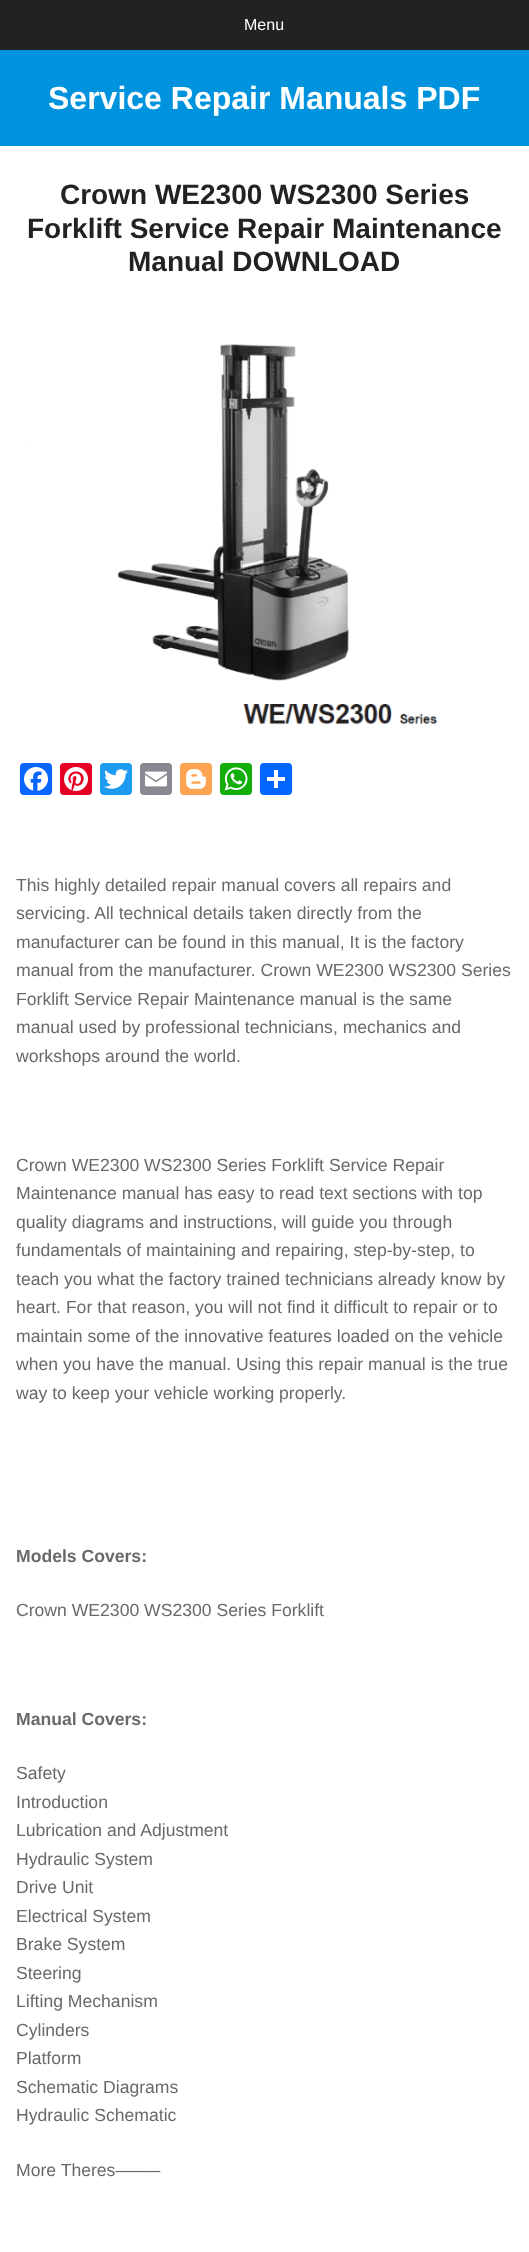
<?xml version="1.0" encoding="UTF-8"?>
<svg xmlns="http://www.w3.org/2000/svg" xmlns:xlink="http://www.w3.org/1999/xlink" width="529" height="2252">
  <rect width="100%" height="100%" fill="#ffffff" />
  <rect y="50" width="529" height="96" fill="#0093dd" />
  <rect width="529" height="50" fill="#222222" />
  <image x="31" y="344" width="407" height="381" xlink:href="image1.png" />
  <rect x="20" y="763" width="32" height="32" rx="4" fill="#0866ff" />
  <image x="24" y="767" width="24" height="24" xlink:href="image2.png" />
  <rect x="60" y="763" width="32" height="32" rx="4" fill="#e60023" />
  <image x="64" y="767" width="24" height="24" xlink:href="image3.png" />
  <rect x="100" y="763" width="32" height="32" rx="4" fill="#1d9bf0" />
  <image x="104" y="769" width="24" height="20" xlink:href="image4.png" />
  <rect x="140" y="763" width="32" height="32" rx="4" fill="#888990" />
  <image x="145" y="771" width="22" height="16" xlink:href="image5.png" />
  <rect x="180" y="763" width="32" height="32" rx="4" fill="#fda352" />
  <image x="186" y="769" width="20" height="20" xlink:href="image6.png" />
  <rect x="220" y="763" width="32" height="32" rx="4" fill="#12af0a" />
  <image x="224" y="767" width="24" height="24" xlink:href="image7.png" />
  <rect x="260" y="763" width="32" height="32" rx="4" fill="#0166ff" />
  <rect x="274" y="770" width="4" height="18" fill="#ffffff" />
  <rect x="267" y="777" width="18" height="4" fill="#ffffff" />
  <text x="244" y="30" style="font-family: Liberation Sans; font-size: 16px; fill: #ffffff">Menu</text>
  <text x="48" y="109" style="font-family: Liberation Sans; font-size: 32px; font-weight: bold; fill: #ffffff">Service Repair Manuals PDF</text>
  <text x="60" y="204" style="font-family: Liberation Sans; font-size: 28px; font-weight: bold; fill: #222222">Crown WE2300 WS2300 Series</text>
  <text x="27" y="238" style="font-family: Liberation Sans; font-size: 28px; font-weight: bold; fill: #222222">Forklift Service Repair Maintenance</text>
  <text x="128" y="271" style="font-family: Liberation Sans; font-size: 28px; font-weight: bold; fill: #222222">Manual DOWNLOAD</text>
  <text x="16" y="891" style="font-family: Liberation Sans; font-size: 17.6px; fill: #696969">This highly detailed repair manual covers all repairs and</text>
  <text x="16" y="919" style="font-family: Liberation Sans; font-size: 17.6px; fill: #696969">servicing. All technical details taken directly from the</text>
  <text x="16" y="948" style="font-family: Liberation Sans; font-size: 17.6px; fill: #696969">manufacturer can be found in this manual, It is the factory</text>
  <text x="16" y="976" style="font-family: Liberation Sans; font-size: 17.6px; fill: #696969">manual from the manufacturer. Crown WE2300 WS2300 Series</text>
  <text x="16" y="1005" style="font-family: Liberation Sans; font-size: 17.6px; fill: #696969">Forklift Service Repair Maintenance manual is the same</text>
  <text x="16" y="1033" style="font-family: Liberation Sans; font-size: 17.6px; fill: #696969">manual used by professional technicians, mechanics and</text>
  <text x="16" y="1062" style="font-family: Liberation Sans; font-size: 17.6px; fill: #696969">workshops around the world.</text>
  <text x="16" y="1171" style="font-family: Liberation Sans; font-size: 17.6px; fill: #696969">Crown WE2300 WS2300 Series Forklift Service Repair</text>
  <text x="16" y="1199" style="font-family: Liberation Sans; font-size: 17.6px; fill: #696969">Maintenance manual has easy to read text sections with top</text>
  <text x="16" y="1228" style="font-family: Liberation Sans; font-size: 17.6px; fill: #696969">quality diagrams and instructions, will guide you through</text>
  <text x="16" y="1256" style="font-family: Liberation Sans; font-size: 17.6px; fill: #696969">fundamentals of maintaining and repairing, step-by-step, to</text>
  <text x="16" y="1285" style="font-family: Liberation Sans; font-size: 17.6px; fill: #696969">teach you what the factory trained technicians already know by</text>
  <text x="16" y="1313" style="font-family: Liberation Sans; font-size: 17.6px; fill: #696969">heart. For that reason, you will not find it difficult to repair or to</text>
  <text x="16" y="1342" style="font-family: Liberation Sans; font-size: 17.6px; fill: #696969">maintain some of the innovative features loaded on the vehicle</text>
  <text x="16" y="1370" style="font-family: Liberation Sans; font-size: 17.6px; fill: #696969">when you have the manual. Using this repair manual is the true</text>
  <text x="16" y="1399" style="font-family: Liberation Sans; font-size: 17.6px; fill: #696969">way to keep your vehicle working properly.</text>
  <text x="16" y="1562" style="font-family: Liberation Sans; font-size: 17.6px; font-weight: bold; fill: #696969">Models Covers:</text>
  <text x="16" y="1616" style="font-family: Liberation Sans; font-size: 17.6px; fill: #696969">Crown WE2300 WS2300 Series Forklift</text>
  <text x="16" y="1725" style="font-family: Liberation Sans; font-size: 17.6px; font-weight: bold; fill: #696969">Manual Covers:</text>
  <text x="16" y="1779" style="font-family: Liberation Sans; font-size: 17.6px; fill: #696969">Safety</text>
  <text x="16" y="1808" style="font-family: Liberation Sans; font-size: 17.6px; fill: #696969">Introduction</text>
  <text x="16" y="1836" style="font-family: Liberation Sans; font-size: 17.6px; fill: #696969">Lubrication and Adjustment</text>
  <text x="16" y="1865" style="font-family: Liberation Sans; font-size: 17.6px; fill: #696969">Hydraulic System</text>
  <text x="16" y="1893" style="font-family: Liberation Sans; font-size: 17.6px; fill: #696969">Drive Unit</text>
  <text x="16" y="1922" style="font-family: Liberation Sans; font-size: 17.6px; fill: #696969">Electrical System</text>
  <text x="16" y="1950" style="font-family: Liberation Sans; font-size: 17.6px; fill: #696969">Brake System</text>
  <text x="16" y="1979" style="font-family: Liberation Sans; font-size: 17.6px; fill: #696969">Steering</text>
  <text x="16" y="2007" style="font-family: Liberation Sans; font-size: 17.6px; fill: #696969">Lifting Mechanism</text>
  <text x="16" y="2036" style="font-family: Liberation Sans; font-size: 17.6px; fill: #696969">Cylinders</text>
  <text x="16" y="2064" style="font-family: Liberation Sans; font-size: 17.6px; fill: #696969">Platform</text>
  <text x="16" y="2093" style="font-family: Liberation Sans; font-size: 17.6px; fill: #696969">Schematic Diagrams</text>
  <text x="16" y="2121" style="font-family: Liberation Sans; font-size: 17.6px; fill: #696969">Hydraulic Schematic</text>
  <text x="16" y="2176" style="font-family: Liberation Sans; font-size: 17.6px; fill: #696969">More Theres——–</text>
</svg>
